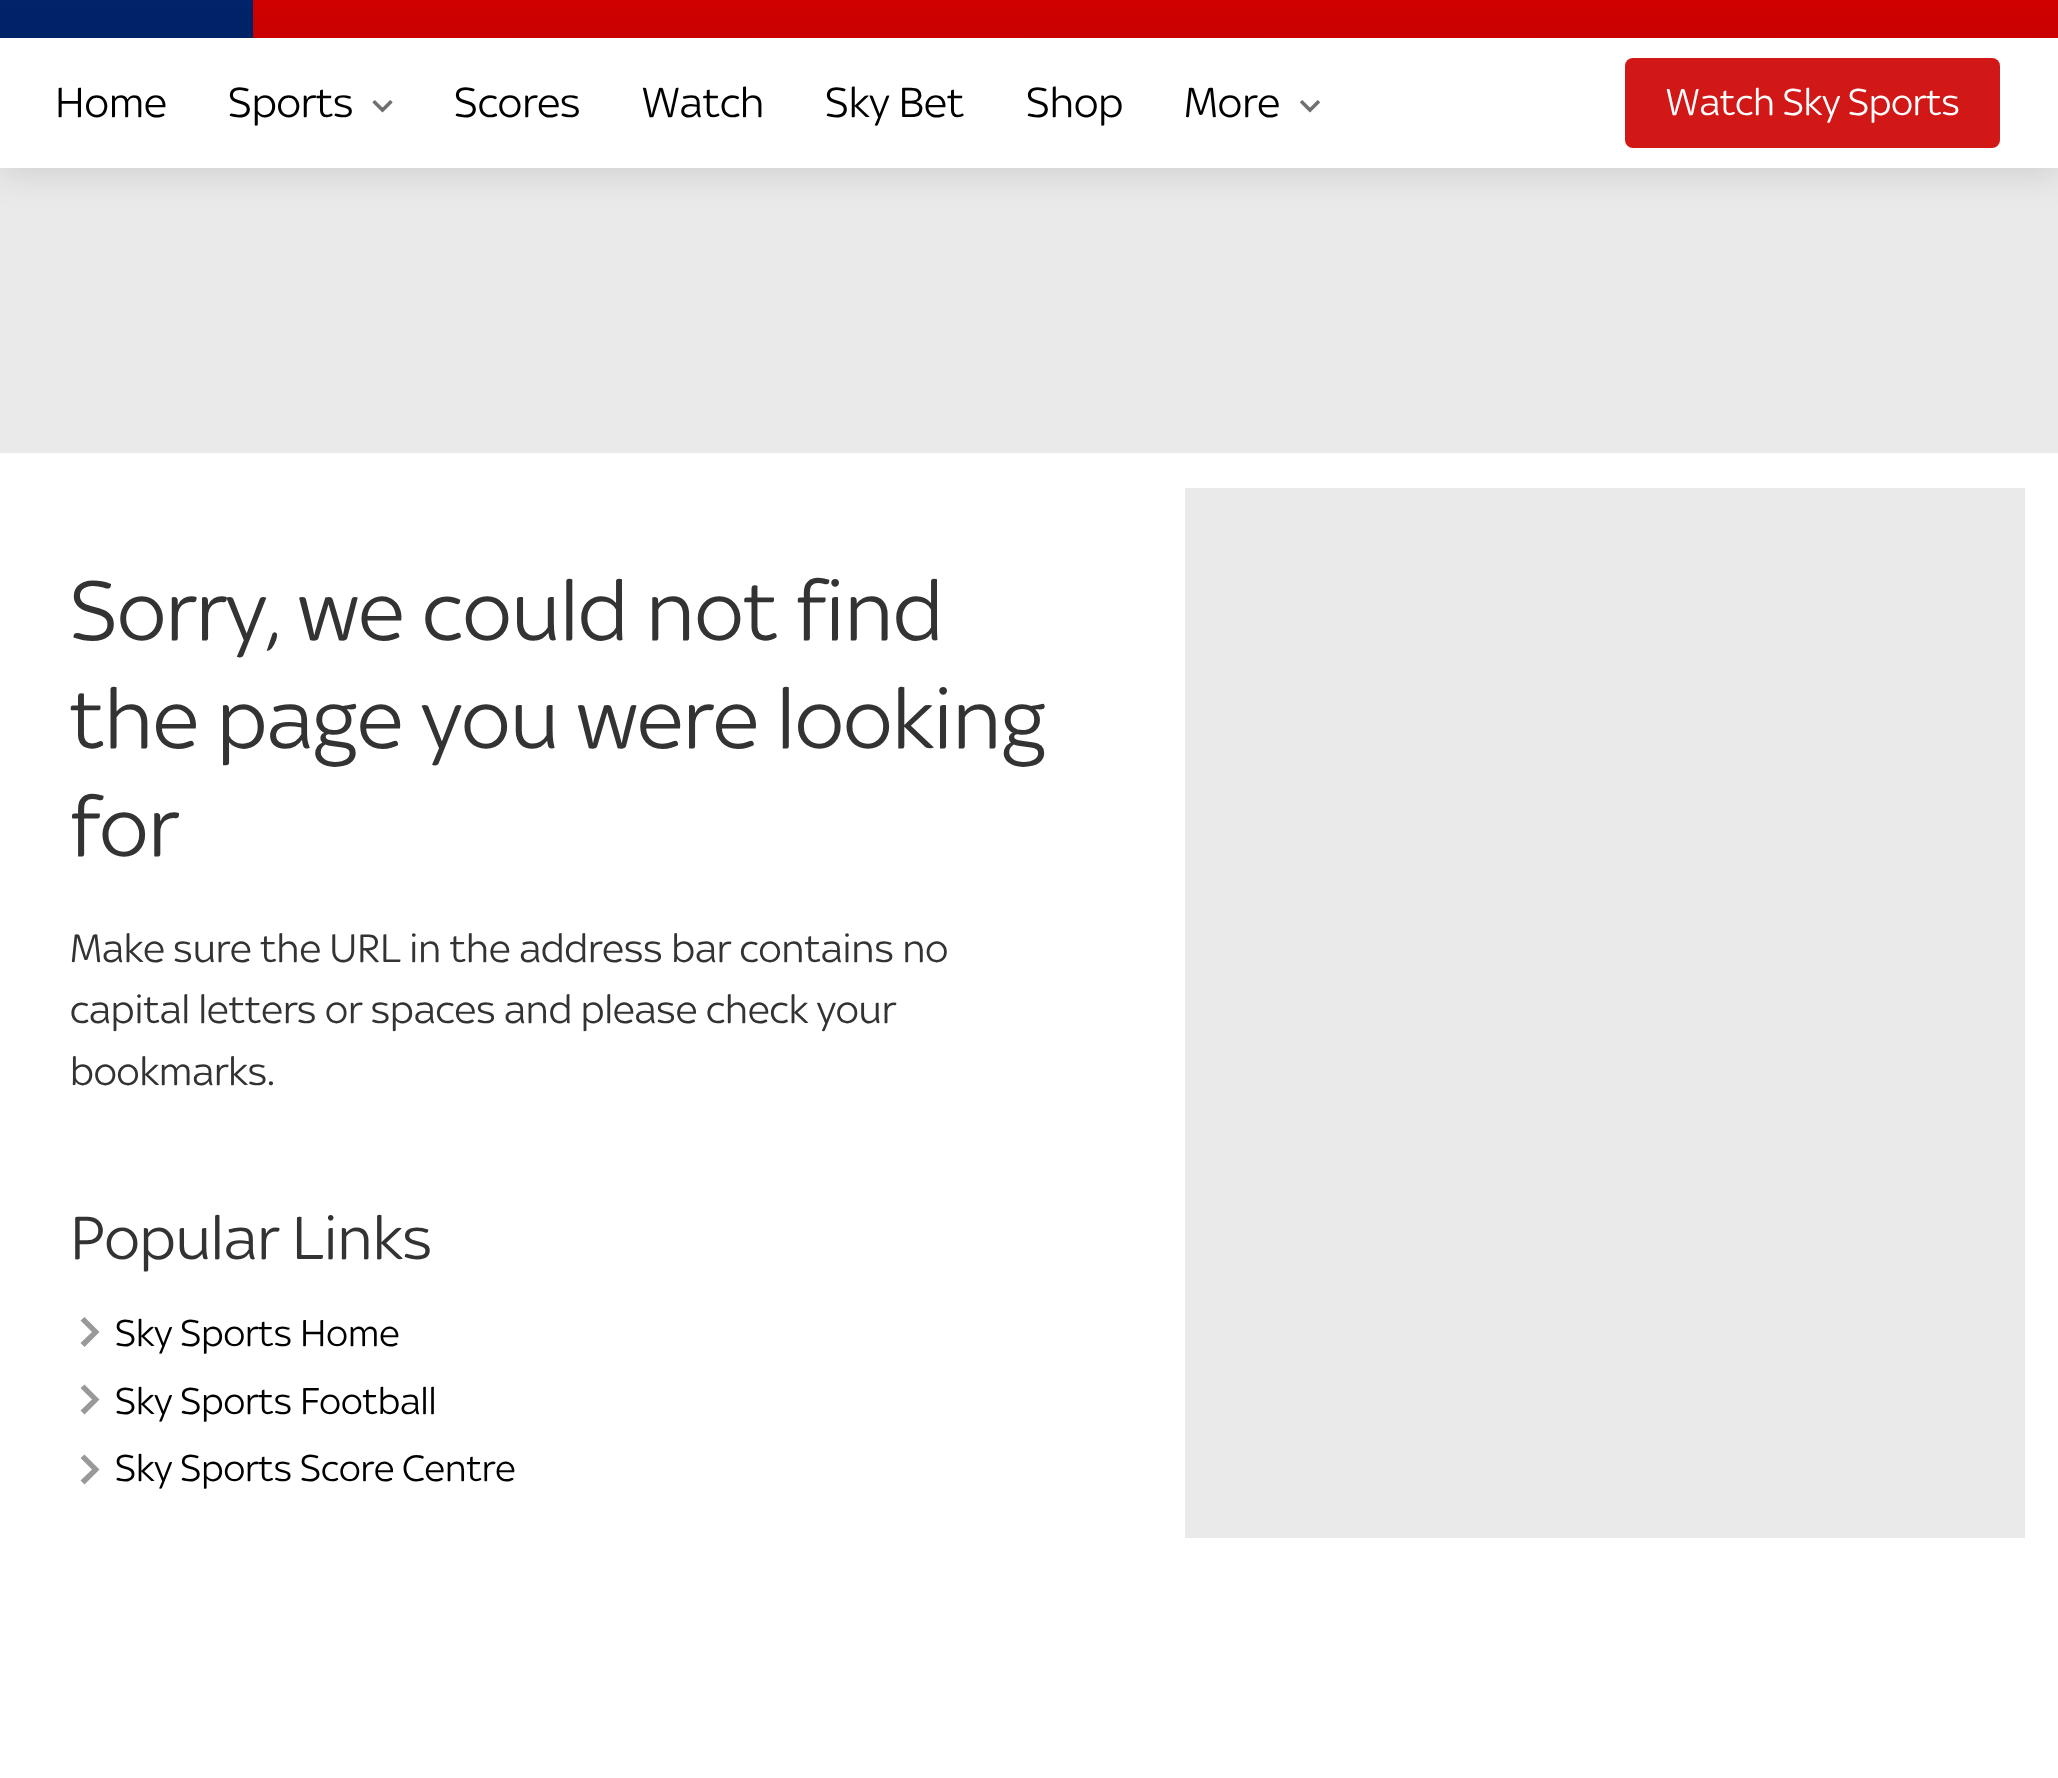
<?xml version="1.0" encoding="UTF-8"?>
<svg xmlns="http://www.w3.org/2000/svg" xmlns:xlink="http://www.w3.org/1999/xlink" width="2058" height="1778">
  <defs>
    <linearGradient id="g1" gradientUnits="userSpaceOnUse" x1="1030" y1="38" x2="1030" y2="-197"><stop offset="0" stop-color="#000000" stop-opacity="0.1" /><stop offset="0.76" stop-color="#000000" stop-opacity="0" /></linearGradient>
  </defs>
  <rect width="100%" height="100%" fill="#ffffff" />
  <rect y="168" width="2058" height="285" fill="#eaeaea" />
  <rect y="-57" width="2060" height="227" fill="#000000" fill-opacity="0.14" filter="blur(19px)" />
  <rect y="38" width="2058" height="130" fill="#ffffff" />
  <rect width="60" height="38" fill="#002672" />
  <rect x="2000" width="58" height="38" fill="#e10000" />
  <rect width="2058" height="38" fill="url(#g1)" />
  <rect x="60" width="193" height="38" fill="#002672" />
  <rect x="253" width="1747" height="38" fill="#e10000" />
  <rect x="60" width="1940" height="38" fill="url(#g1)" />
  <image x="372" y="100" width="21" height="13" xlink:href="image1.png" />
  <image x="1300" y="100" width="20" height="13" xlink:href="image2.png" />
  <rect x="1625" y="58" width="375" height="90" rx="8" fill="#d21717" />
  <path d="M 99.5 1332 l -15 -15 l -4 3.5 l 11.5 11.5 l -11.5 11 l 4 4 z" fill="#999999" />
  <path d="M 99.5 1399.5 l -15 -15 l -4 3.5 l 11.5 11.5 l -11.5 11 l 4 4 z" fill="#999999" />
  <path d="M 99.5 1469.5 l -15 -15 l -4 3.5 l 11.5 11.5 l -11.5 11 l 4 4 z" fill="#999999" />
  <rect x="1185" y="488" width="840" height="1050" fill="#eaeaea" />
  <text x="55" y="117" style="font-family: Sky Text; font-size: 45px; fill: #000000">Home</text>
  <text x="228" y="117" style="font-family: Sky Text; font-size: 45px; fill: #000000">Sports</text>
  <text x="454" y="117" style="font-family: Sky Text; font-size: 45px; fill: #000000">Scores</text>
  <text x="642" y="117" style="font-family: Sky Text; font-size: 45px; fill: #000000">Watch</text>
  <text x="825" y="117" style="font-family: Sky Text; font-size: 45px; fill: #000000">Sky Bet</text>
  <text x="1026" y="117" style="font-family: Sky Text; font-size: 45px; fill: #000000">Shop</text>
  <text x="1184" y="117" style="font-family: Sky Text; font-size: 45px; fill: #000000">More</text>
  <text x="1666" y="115" style="font-family: Sky Text; font-size: 40px; fill: #ffffff">Watch Sky Sports</text>
  <text x="70" y="640" style="font-family: Sky Text; font-size: 90px; fill: #333333">Sorry, we could not find</text>
  <text x="70" y="748" style="font-family: Sky Text; font-size: 90px; fill: #333333">the page you were looking</text>
  <text x="70" y="856" style="font-family: Sky Text; font-size: 90px; fill: #333333">for</text>
  <text x="70" y="962" style="font-family: Sky Text; font-size: 42.5px; fill: #333333">Make sure the URL in the address bar contains no</text>
  <text x="70" y="1023" style="font-family: Sky Text; font-size: 42.5px; fill: #333333">capital letters or spaces and please check your</text>
  <text x="70" y="1085" style="font-family: Sky Text; font-size: 42.5px; fill: #333333">bookmarks.</text>
  <text x="70" y="1259" style="font-family: Sky Text; font-size: 65px; fill: #333333">Popular Links</text>
  <text x="115" y="1346" style="font-family: Sky Text; font-size: 40px; fill: #000000">Sky Sports Home</text>
  <text x="115" y="1414" style="font-family: Sky Text; font-size: 40px; fill: #000000">Sky Sports Football</text>
  <text x="115" y="1481" style="font-family: Sky Text; font-size: 40px; fill: #000000">Sky Sports Score Centre</text>
</svg>
